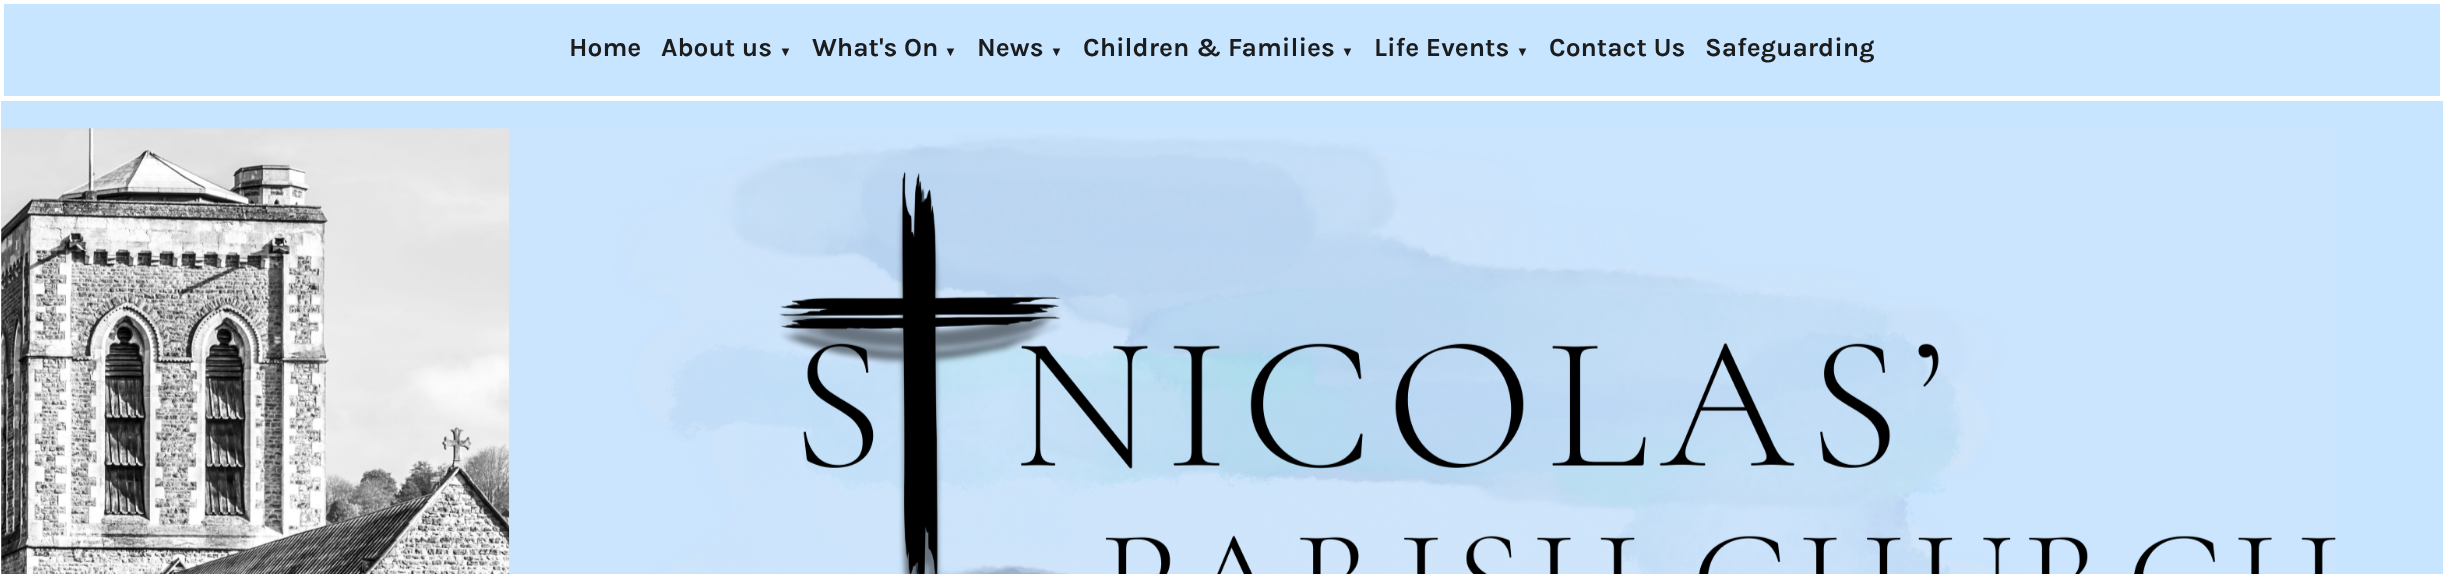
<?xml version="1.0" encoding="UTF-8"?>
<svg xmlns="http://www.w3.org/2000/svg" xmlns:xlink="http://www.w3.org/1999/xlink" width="2443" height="574">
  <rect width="100%" height="100%" fill="#c7e5ff" />
  <rect x="2" y="2" width="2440" height="96" fill="none" stroke="#ffffff" stroke-width="4" />
  <rect x="0.5" y="100.5" width="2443" height="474" fill="none" stroke="#ffffff" />
  <image x="1" y="127" width="2335" height="447" xlink:href="image1.png" />
  <text x="569" y="56" style="font-family: Karla; font-size: 26.25px; font-weight: bold; fill: #1c1c1c">Home</text>
  <text x="661" y="56" style="font-family: Karla; font-size: 26.25px; font-weight: bold; fill: #1c1c1c">About us</text>
  <text x="779" y="56" style="font-family: Liberation Serif; font-size: 13px; font-weight: bold; fill: #1c1c1c">▼</text>
  <text x="812" y="56" style="font-family: Karla; font-size: 26.25px; font-weight: bold; fill: #1c1c1c">What's On</text>
  <text x="944" y="56" style="font-family: Liberation Serif; font-size: 13px; font-weight: bold; fill: #1c1c1c">▼</text>
  <text x="977" y="56" style="font-family: Karla; font-size: 26.25px; font-weight: bold; fill: #1c1c1c">News</text>
  <text x="1050" y="56" style="font-family: Liberation Serif; font-size: 13px; font-weight: bold; fill: #1c1c1c">▼</text>
  <text x="1083" y="56" style="font-family: Karla; font-size: 26.25px; font-weight: bold; fill: #1c1c1c">Children &amp; Families</text>
  <text x="1341" y="56" style="font-family: Liberation Serif; font-size: 13px; font-weight: bold; fill: #1c1c1c">▼</text>
  <text x="1374" y="56" style="font-family: Karla; font-size: 26.25px; font-weight: bold; fill: #1c1c1c">Life Events</text>
  <text x="1516" y="56" style="font-family: Liberation Serif; font-size: 13px; font-weight: bold; fill: #1c1c1c">▼</text>
  <text x="1549" y="56" style="font-family: Karla; font-size: 26.25px; font-weight: bold; fill: #1c1c1c">Contact Us</text>
  <text x="1705" y="56" style="font-family: Karla; font-size: 26.25px; font-weight: bold; fill: #1c1c1c">Safeguarding</text>
</svg>
